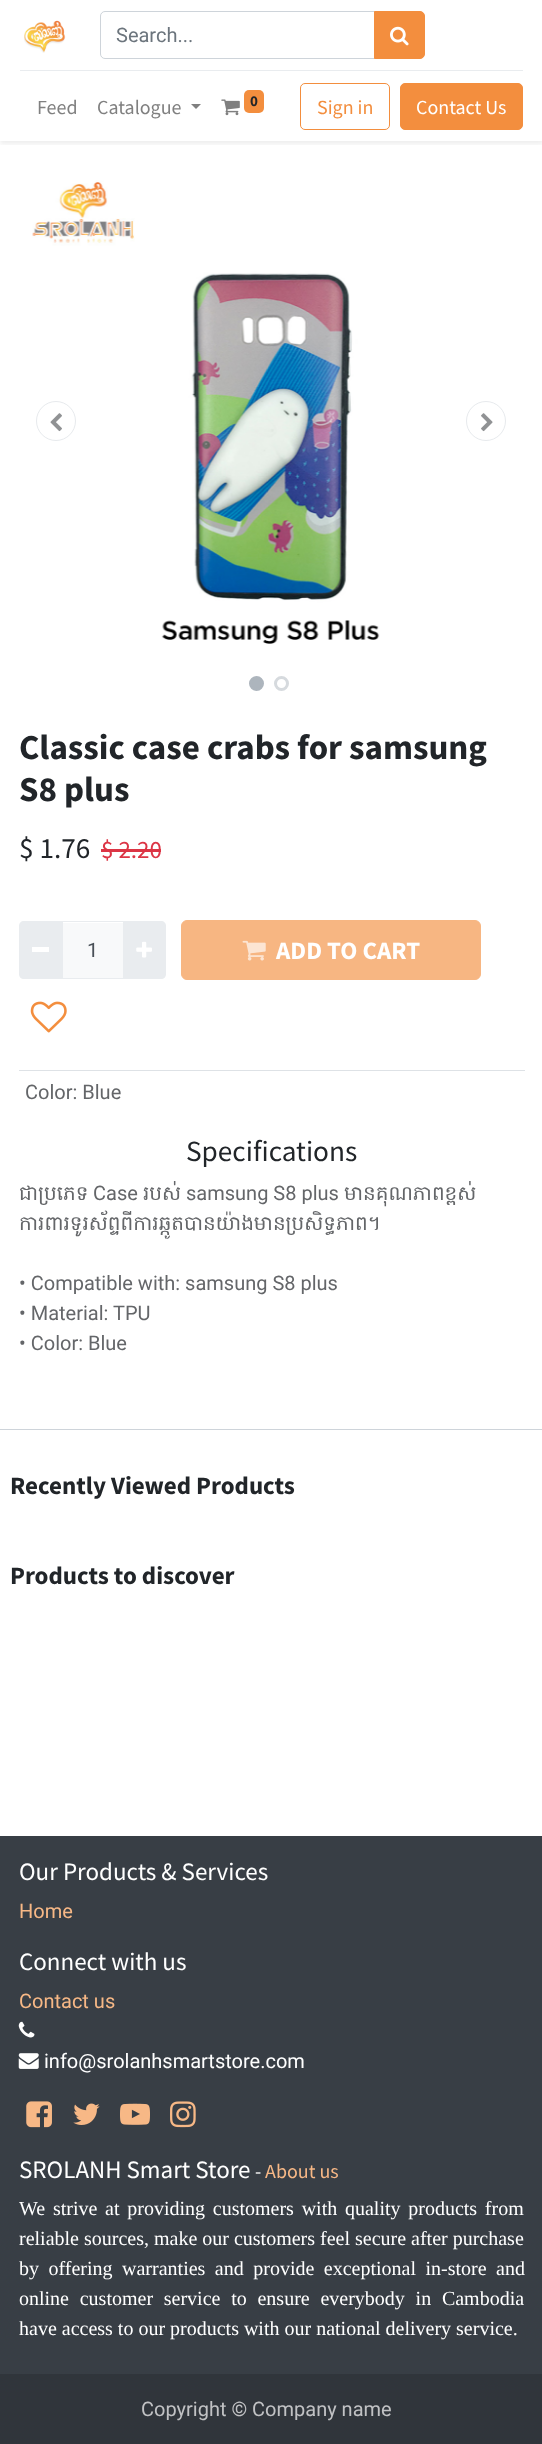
<?xml version="1.0" encoding="UTF-8"?>
<svg xmlns="http://www.w3.org/2000/svg" xmlns:xlink="http://www.w3.org/1999/xlink" width="542" height="2444">
  <defs>
    <clipPath id="clip1"><rect x="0" y="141" width="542" height="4" /></clipPath>
  </defs>
  <rect width="100%" height="100%" fill="#ffffff" />
  <g clip-path="url(#clip1)">
    <rect y="3" width="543" height="141" fill="#000000" fill-opacity="0.07" filter="blur(2.5px)" />
  </g>
  <image x="24" y="20" width="42" height="33" xlink:href="image1.png" />
  <path d="M 105 11.5 h 269.5 v 47 h -269.5 c -2.5 0 -4.5 -2 -4.5 -4.5 v -38 c 0 -2.5 2 -4.5 4.5 -4.5 z" fill="none" stroke="#ced4da" />
  <path d="M 374.5 11.5 h 45.5 c 2.5 0 4.5 2 4.5 4.5 v 38 c 0 2.5 -2 4.5 -4.5 4.5 h -45.5 z" fill="#f38e3e" stroke="#f38e3e" />
  <image x="390" y="26" width="19" height="20" xlink:href="image2.png" />
  <rect x="20" y="70" width="503" height="1" fill="#e9ecef" />
  <path d="M 191 104 h 10 l -5 5 z" fill="#808080" />
  <image x="221" y="99" width="19" height="17" xlink:href="image3.png" />
  <rect x="244" y="90" width="20" height="23" rx="5" fill="#f38e3e" />
  <rect x="300.5" y="83.5" width="89" height="46" rx="4.5" fill="none" stroke="#f38e3e" />
  <rect x="400.5" y="83.5" width="122" height="46" rx="4.5" fill="#f38e3e" stroke="#f38e3e" />
  <image x="32" y="180" width="348" height="464" xlink:href="image4.png" />
  <circle cx="56" cy="421" r="19.5" fill="none" stroke="#e7eaed" />
  <image x="50" y="413" width="12" height="19" xlink:href="image5.png" />
  <circle cx="486" cy="421" r="19.5" fill="none" stroke="#e7eaed" />
  <image x="481" y="413" width="12" height="19" xlink:href="image6.png" />
  <circle cx="256.5" cy="683.5" r="6" fill="#adb5bd" stroke="#adb5bd" stroke-width="3" />
  <circle cx="281.5" cy="683.5" r="6" fill="none" stroke="#d6dade" stroke-width="3" />
  <rect x="101" y="849" width="60" height="3" fill="#dc3545" />
  <rect x="63" y="923" width="60" height="55" fill="#f8f9fa" />
  <rect x="61.5" y="921.5" width="62" height="57" fill="none" stroke="#e9ecef" />
  <path d="M 24 921 h 39 v 58 h -39 c -3 0 -5 -2 -5 -5 v -48 c 0 -3 2 -5 5 -5 z" fill="#e9ecef" />
  <rect x="32" y="947" width="17" height="5" fill="#ffffff" />
  <path d="M 123 921 h 38 c 3 0 5 2 5 5 v 48 c 0 3 -2 5 -5 5 h -38 z" fill="#e9ecef" />
  <image x="136" y="941" width="16" height="17" xlink:href="image7.png" />
  <rect x="181.5" y="920.5" width="299" height="59" rx="5.5" fill="#f7b682" stroke="#f7b682" />
  <image x="242" y="940" width="24" height="21" xlink:href="image8.png" />
  <image x="30" y="1001" width="37" height="32" xlink:href="image9.png" />
  <rect x="19" y="1070" width="506" height="1" fill="#dee2e6" />
  <rect y="1429" width="542" height="1" fill="#ced4da" />
  <rect y="1836" width="542" height="538" fill="#383e45" />
  <image x="18" y="2021" width="17" height="17" xlink:href="image10.png" />
  <image x="18" y="2053" width="21" height="16" xlink:href="image11.png" />
  <image x="26" y="2101" width="26" height="27" xlink:href="image12.png" />
  <image x="73" y="2103" width="27" height="22" xlink:href="image13.png" />
  <image x="120" y="2103" width="30" height="22" xlink:href="image14.png" />
  <image x="170" y="2101" width="26" height="27" xlink:href="image15.png" />
  <rect y="2374" width="542" height="70" fill="#30353b" />
  <text x="116" y="42" style="font-family: Roboto; font-size: 20px; fill: #6c757d">Search...</text>
  <text x="37" y="114" style="font-family: Source Sans Pro; font-size: 20px; fill: #808080">Feed</text>
  <text x="97" y="114" style="font-family: Source Sans Pro; font-size: 20px; fill: #808080">Catalogue</text>
  <text x="250" y="106" style="font-family: Source Sans Pro; font-size: 15px; font-weight: bold; fill: #212529">0</text>
  <text x="317" y="114" style="font-family: Source Sans Pro; font-size: 20px; fill: #f38e3e">Sign in</text>
  <text x="416" y="114" style="font-family: Source Sans Pro; font-size: 20px; fill: #ffffff">Contact Us</text>
  <text x="19" y="759" style="font-family: Source Sans Pro; font-size: 35px; font-weight: bold; fill: #212529">Classic case crabs for samsung</text>
  <text x="19" y="801" style="font-family: Source Sans Pro; font-size: 35px; font-weight: bold; fill: #212529">S8 plus</text>
  <text x="19" y="858" style="font-family: Source Sans Pro; font-size: 29.25px; fill: #212529">$ 1.76</text>
  <text x="101" y="858" style="font-family: Source Sans Pro; font-size: 25px; fill: #dc3545">$ 2.20</text>
  <text x="87" y="957" style="font-family: Roboto; font-size: 20px; fill: #495057">1</text>
  <text x="276" y="959" style="font-family: Source Sans Pro; font-size: 25px; font-weight: bold; fill: #ffffff">ADD TO CART</text>
  <text x="25" y="1099" style="font-family: Roboto; font-size: 20px; fill: #646669">Color: Blue</text>
  <text x="186" y="1161" style="font-family: Source Sans Pro; font-size: 29.25px; fill: #212529">Specifications</text>
  <text x="19" y="1200" style="font-family: Hanuman; font-size: 20px; fill: #646669">ជាប្រភេទ</text>
  <text x="93" y="1200" style="font-family: Roboto; font-size: 20px; fill: #646669">Case</text>
  <text x="143" y="1200" style="font-family: Hanuman; font-size: 20px; fill: #646669">របស់</text>
  <text x="186" y="1200" style="font-family: Roboto; font-size: 20px; fill: #646669">samsung S8 plus</text>
  <text x="344" y="1200" style="font-family: Hanuman; font-size: 20px; fill: #646669">មានគុណភាពខ្ពស់</text>
  <text x="19" y="1230" style="font-family: Hanuman; font-size: 20px; fill: #646669">ការពារទូរស័ព្ទពីការឆ្កូតបានយ៉ាងមានប្រសិទ្ធភាព។</text>
  <text x="19" y="1290" style="font-family: Roboto; font-size: 20px; fill: #646669">• Compatible with: samsung S8 plus</text>
  <text x="19" y="1320" style="font-family: Roboto; font-size: 20px; fill: #646669">• Material: TPU</text>
  <text x="19" y="1350" style="font-family: Roboto; font-size: 20px; fill: #646669">• Color: Blue</text>
  <text x="10" y="1494" style="font-family: Source Sans Pro; font-size: 25px; font-weight: bold; fill: #212529">Recently Viewed Products</text>
  <text x="10" y="1584" style="font-family: Source Sans Pro; font-size: 25px; font-weight: bold; fill: #212529">Products to discover</text>
  <text x="19" y="1880" style="font-family: Source Sans Pro; font-size: 25px; fill: #ffffff">Our Products &amp; Services</text>
  <text x="19" y="1918" style="font-family: Roboto; font-size: 20px; fill: #f7b886">Home</text>
  <text x="19" y="1970" style="font-family: Source Sans Pro; font-size: 25px; fill: #ffffff">Connect with us</text>
  <text x="19" y="2008" style="font-family: Roboto; font-size: 20px; fill: #f7b886">Contact us</text>
  <text x="44" y="2068" style="font-family: Roboto; font-size: 20px; fill: #ffffff">info@srolanhsmartstore.com</text>
  <text x="19" y="2178" style="font-family: Source Sans Pro; font-size: 25px; fill: #ffffff">SROLANH Smart Store</text>
  <text x="255" y="2178" style="font-family: Source Sans Pro; font-size: 20px; fill: #ffffff">-</text>
  <text x="265" y="2178" style="font-family: Source Sans Pro; font-size: 20px; fill: #f7b886">About us</text>
  <text x="19" y="2215" word-spacing="2.75" style="font-family: Liberation Serif; font-size: 20px; fill: #ffffff">We strive at providing customers with quality products from</text>
  <text x="19" y="2245" style="font-family: Liberation Serif; font-size: 20px; fill: #ffffff">reliable sources, make our customers feel secure after purchase</text>
  <text x="19" y="2275" word-spacing="4.5" style="font-family: Liberation Serif; font-size: 20px; fill: #ffffff">by offering warranties and provide exceptional in-store and</text>
  <text x="19" y="2305" word-spacing="5.75" style="font-family: Liberation Serif; font-size: 20px; fill: #ffffff">online customer service to ensure everybody in Cambodia</text>
  <text x="19" y="2335" style="font-family: Liberation Serif; font-size: 20px; fill: #ffffff">have access to our products with our national delivery service.</text>
  <text x="141" y="2416" style="font-family: Roboto; font-size: 20px; fill: #c1c2c4">Copyright © Company name</text>
</svg>
